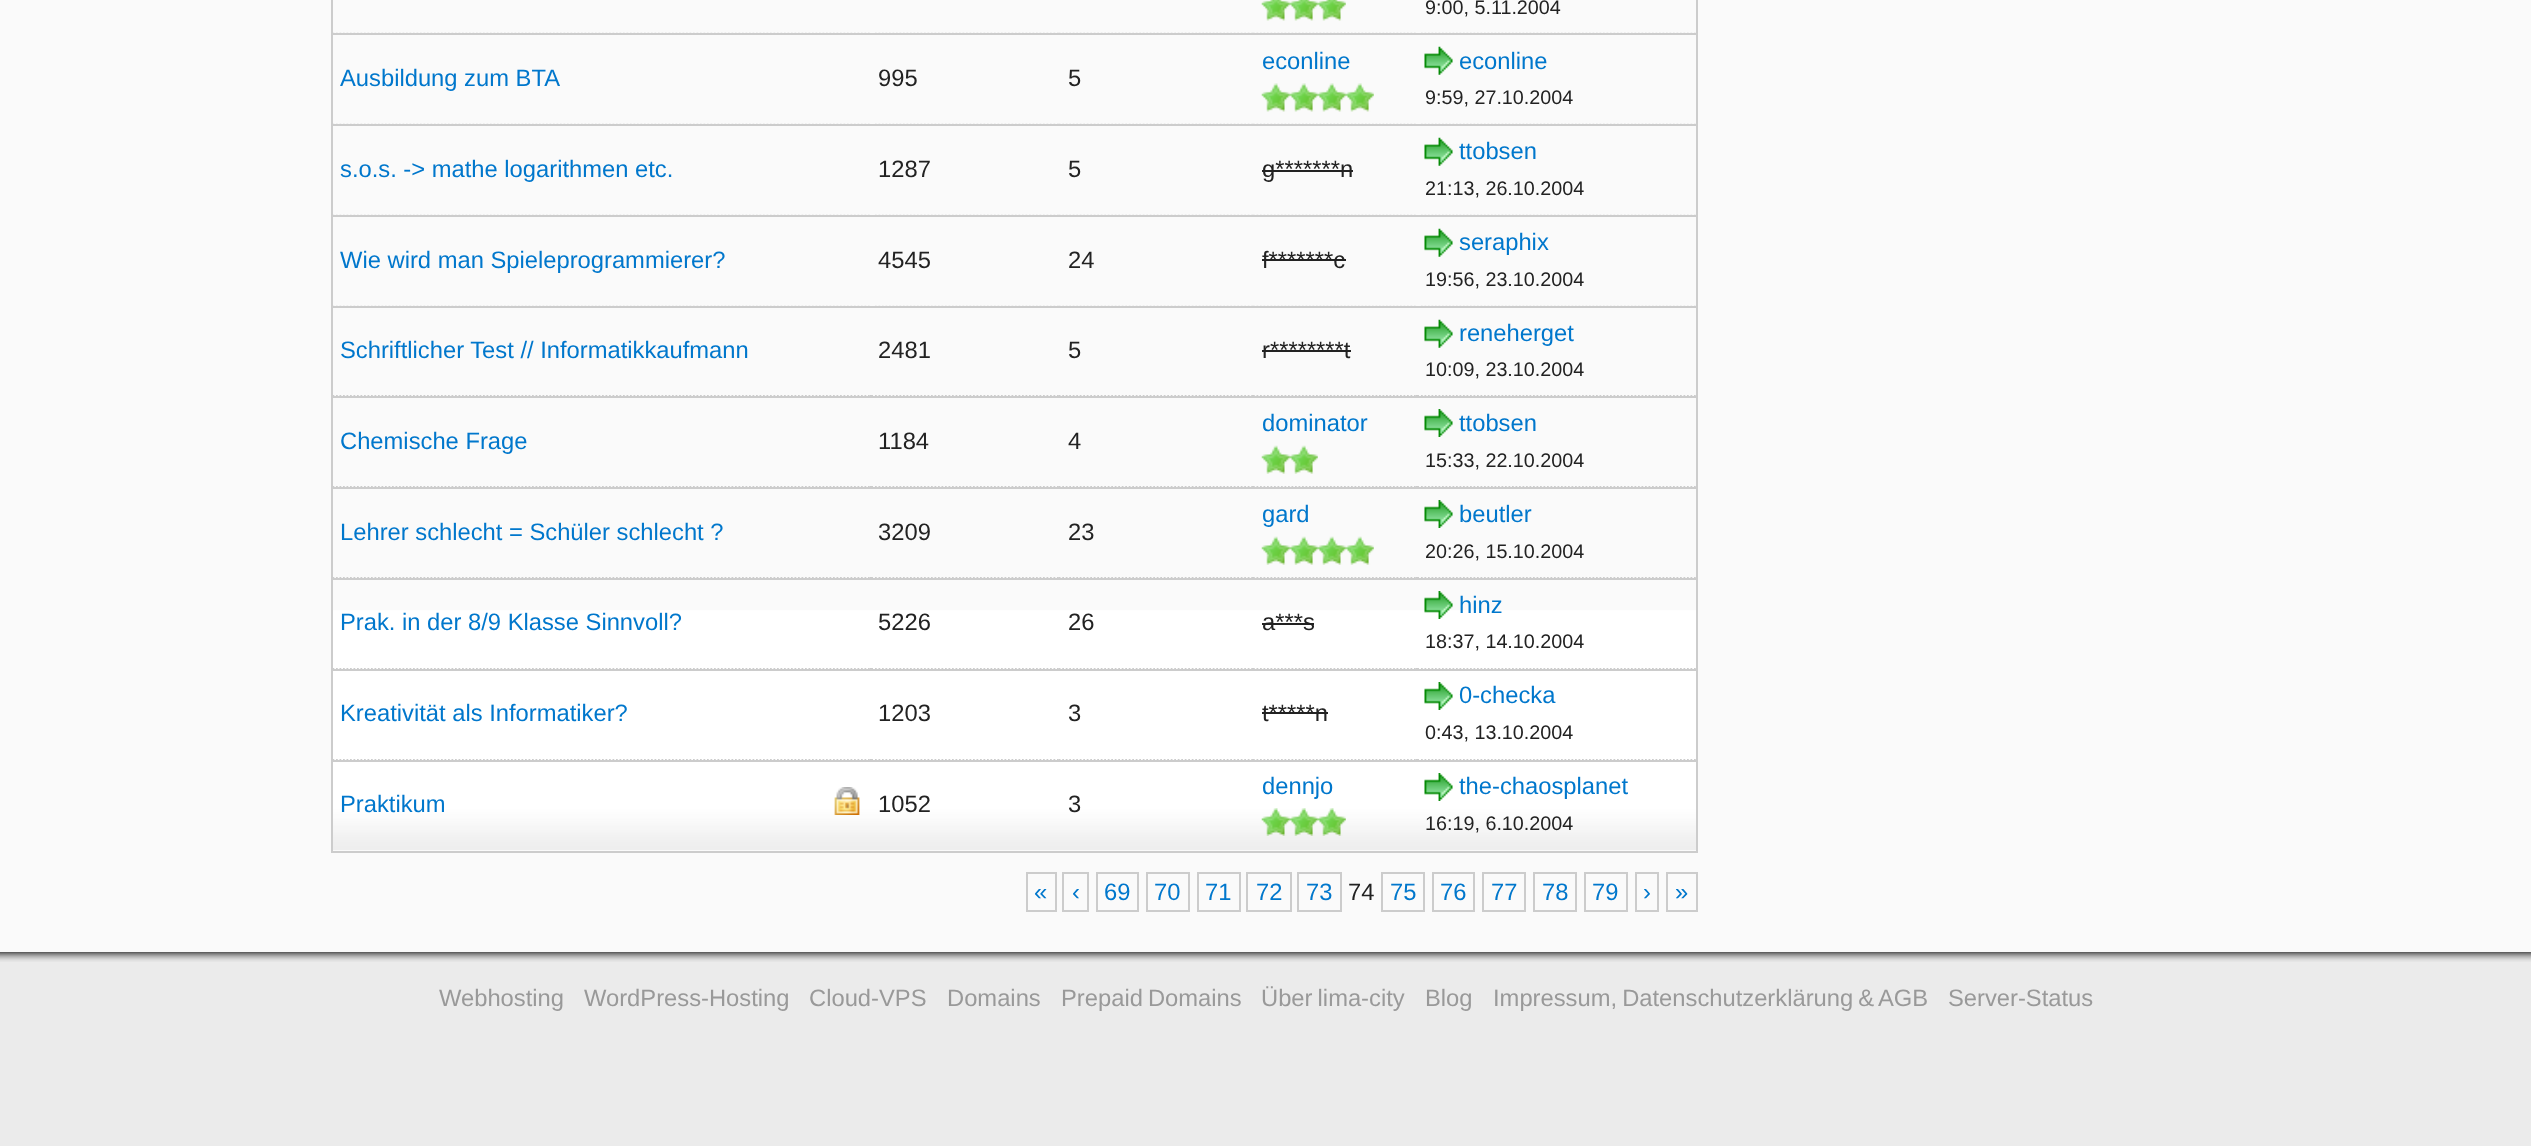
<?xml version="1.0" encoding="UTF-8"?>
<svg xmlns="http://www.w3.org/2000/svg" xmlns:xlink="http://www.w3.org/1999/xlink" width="2531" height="1146">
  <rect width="100%" height="100%" fill="#ebebeb" />
  <rect width="2531" height="952" fill="#fafafa" />
  <image x="333" y="32" width="1363" height="818" xlink:href="image1.png" />
  <rect x="1696" width="2" height="852" fill="#cccccc" />
  <rect x="331" y="851" width="1367" height="2" fill="#cccccc" />
  <rect x="331" width="2" height="852" fill="#cccccc" />
  <rect x="331" y="33" width="1367" height="2" fill="#cccccc" />
  <image x="1261" y="0" width="29" height="21" xlink:href="image2.png" />
  <image x="1289" y="0" width="29" height="21" xlink:href="image3.png" />
  <image x="1317" y="0" width="29" height="21" xlink:href="image4.png" />
  <rect x="331" y="124" width="1367" height="2" fill="#cccccc" />
  <image x="1261" y="83" width="29" height="29" xlink:href="image5.png" />
  <image x="1289" y="83" width="29" height="29" xlink:href="image6.png" />
  <image x="1317" y="83" width="29" height="29" xlink:href="image7.png" />
  <image x="1345" y="83" width="29" height="29" xlink:href="image6.png" />
  <image x="1424" y="46" width="29" height="29" xlink:href="image8.png" />
  <rect x="331" y="215" width="1367" height="2" fill="#cccccc" />
  <rect x="1262" y="170" width="91" height="2" fill="#222222" />
  <image x="1424" y="137" width="29" height="29" xlink:href="image8.png" />
  <rect x="331" y="306" width="1367" height="2" fill="#cccccc" />
  <rect x="1262" y="259" width="84" height="2" fill="#222222" />
  <image x="1424" y="228" width="29" height="29" xlink:href="image9.png" />
  <rect x="331" y="396" width="1367" height="2" fill="#cccccc" />
  <rect x="1262" y="350" width="89" height="2" fill="#222222" />
  <image x="1424" y="319" width="29" height="29" xlink:href="image8.png" />
  <rect x="331" y="487" width="1367" height="2" fill="#cccccc" />
  <image x="1261" y="445" width="29" height="29" xlink:href="image10.png" />
  <image x="1289" y="445" width="29" height="29" xlink:href="image11.png" />
  <image x="1424" y="409" width="29" height="28" xlink:href="image12.png" />
  <rect x="331" y="578" width="1367" height="2" fill="#cccccc" />
  <image x="1261" y="536" width="29" height="29" xlink:href="image10.png" />
  <image x="1289" y="536" width="29" height="29" xlink:href="image11.png" />
  <image x="1317" y="536" width="29" height="29" xlink:href="image13.png" />
  <image x="1345" y="536" width="29" height="29" xlink:href="image11.png" />
  <image x="1424" y="500" width="29" height="28" xlink:href="image12.png" />
  <rect x="331" y="669" width="1367" height="2" fill="#cccccc" />
  <rect x="1262" y="623" width="52" height="2" fill="#222222" />
  <image x="1424" y="591" width="29" height="28" xlink:href="image14.png" />
  <rect x="331" y="760" width="1367" height="2" fill="#cccccc" />
  <rect x="1262" y="712" width="66" height="2" fill="#222222" />
  <image x="1424" y="682" width="29" height="28" xlink:href="image15.png" />
  <image x="834" y="787" width="26" height="28" xlink:href="image16.png" />
  <image x="1261" y="808" width="29" height="28" xlink:href="image17.png" />
  <image x="1289" y="808" width="29" height="28" xlink:href="image18.png" />
  <image x="1317" y="808" width="29" height="28" xlink:href="image19.png" />
  <image x="1424" y="773" width="29" height="28" xlink:href="image15.png" />
  <rect x="1027" y="873" width="29" height="38" fill="none" stroke="#cccccc" stroke-width="2" />
  <rect x="1063" y="873" width="25" height="38" fill="none" stroke="#cccccc" stroke-width="2" />
  <rect x="1097" y="873" width="41" height="38" fill="none" stroke="#cccccc" stroke-width="2" />
  <rect x="1147" y="873" width="42" height="38" fill="none" stroke="#cccccc" stroke-width="2" />
  <rect x="1198" y="873" width="42" height="38" fill="none" stroke="#cccccc" stroke-width="2" />
  <rect x="1247" y="873" width="44" height="38" fill="none" stroke="#cccccc" stroke-width="2" />
  <rect x="1298" y="873" width="43" height="38" fill="none" stroke="#cccccc" stroke-width="2" />
  <rect x="1382" y="873" width="42" height="38" fill="none" stroke="#cccccc" stroke-width="2" />
  <rect x="1433" y="873" width="41" height="38" fill="none" stroke="#cccccc" stroke-width="2" />
  <rect x="1483" y="873" width="42" height="38" fill="none" stroke="#cccccc" stroke-width="2" />
  <rect x="1534" y="873" width="42" height="38" fill="none" stroke="#cccccc" stroke-width="2" />
  <rect x="1585" y="873" width="42" height="38" fill="none" stroke="#cccccc" stroke-width="2" />
  <rect x="1636" y="873" width="22" height="38" fill="none" stroke="#cccccc" stroke-width="2" />
  <rect x="1667" y="873" width="30" height="38" fill="none" stroke="#cccccc" stroke-width="2" />
  <image x="0" y="952" width="2531" height="10" xlink:href="image20.png" />
  <text x="1425" y="14" style="font-family: Liberation Sans; font-size: 19.75px; fill: #222222">9:00, 5.11.2004</text>
  <text x="340" y="86" style="font-family: Liberation Sans; font-size: 23.75px; fill: #0077cc">Ausbildung zum BTA</text>
  <text x="878" y="86" style="font-family: Liberation Sans; font-size: 23.75px; fill: #222222">995</text>
  <text x="1068" y="86" style="font-family: Liberation Sans; font-size: 23.75px; fill: #222222">5</text>
  <text x="1262" y="69" style="font-family: Liberation Sans; font-size: 23.75px; fill: #0077cc">econline</text>
  <text x="1459" y="69" style="font-family: Liberation Sans; font-size: 23.75px; fill: #0077cc">econline</text>
  <text x="1425" y="104" style="font-family: Liberation Sans; font-size: 19.75px; fill: #222222">9:59, 27.10.2004</text>
  <text x="340" y="177" style="font-family: Liberation Sans; font-size: 23.75px; fill: #0077cc">s.o.s. -&gt; mathe logarithmen etc.</text>
  <text x="878" y="177" style="font-family: Liberation Sans; font-size: 23.75px; fill: #222222">1287</text>
  <text x="1068" y="177" style="font-family: Liberation Sans; font-size: 23.75px; fill: #222222">5</text>
  <text x="1262" y="177" style="font-family: Liberation Sans; font-size: 23.75px; fill: #222222">g*******n</text>
  <text x="1459" y="159" style="font-family: Liberation Sans; font-size: 23.75px; fill: #0077cc">ttobsen</text>
  <text x="1425" y="195" style="font-family: Liberation Sans; font-size: 19.75px; fill: #222222">21:13, 26.10.2004</text>
  <text x="340" y="268" style="font-family: Liberation Sans; font-size: 23.75px; fill: #0077cc">Wie wird man Spieleprogrammierer?</text>
  <text x="878" y="268" style="font-family: Liberation Sans; font-size: 23.75px; fill: #222222">4545</text>
  <text x="1068" y="268" style="font-family: Liberation Sans; font-size: 23.75px; fill: #222222">24</text>
  <text x="1262" y="268" style="font-family: Liberation Sans; font-size: 23.75px; fill: #222222">f*******c</text>
  <text x="1459" y="250" style="font-family: Liberation Sans; font-size: 23.75px; fill: #0077cc">seraphix</text>
  <text x="1425" y="286" style="font-family: Liberation Sans; font-size: 19.75px; fill: #222222">19:56, 23.10.2004</text>
  <text x="340" y="358" style="font-family: Liberation Sans; font-size: 23.75px; fill: #0077cc">Schriftlicher Test // Informatikkaufmann</text>
  <text x="878" y="358" style="font-family: Liberation Sans; font-size: 23.75px; fill: #222222">2481</text>
  <text x="1068" y="358" style="font-family: Liberation Sans; font-size: 23.75px; fill: #222222">5</text>
  <text x="1262" y="358" style="font-family: Liberation Sans; font-size: 23.75px; fill: #222222">r********t</text>
  <text x="1459" y="341" style="font-family: Liberation Sans; font-size: 23.75px; fill: #0077cc">reneherget</text>
  <text x="1425" y="376" style="font-family: Liberation Sans; font-size: 19.75px; fill: #222222">10:09, 23.10.2004</text>
  <text x="340" y="449" style="font-family: Liberation Sans; font-size: 23.75px; fill: #0077cc">Chemische Frage</text>
  <text x="878" y="449" style="font-family: Liberation Sans; font-size: 23.75px; fill: #222222">1184</text>
  <text x="1068" y="449" style="font-family: Liberation Sans; font-size: 23.75px; fill: #222222">4</text>
  <text x="1262" y="431" style="font-family: Liberation Sans; font-size: 23.75px; fill: #0077cc">dominator</text>
  <text x="1459" y="431" style="font-family: Liberation Sans; font-size: 23.75px; fill: #0077cc">ttobsen</text>
  <text x="1425" y="467" style="font-family: Liberation Sans; font-size: 19.75px; fill: #222222">15:33, 22.10.2004</text>
  <text x="340" y="540" style="font-family: Liberation Sans; font-size: 23.75px; fill: #0077cc">Lehrer schlecht = Schüler schlecht ?</text>
  <text x="878" y="540" style="font-family: Liberation Sans; font-size: 23.75px; fill: #222222">3209</text>
  <text x="1068" y="540" style="font-family: Liberation Sans; font-size: 23.75px; fill: #222222">23</text>
  <text x="1262" y="522" style="font-family: Liberation Sans; font-size: 23.75px; fill: #0077cc">gard</text>
  <text x="1459" y="522" style="font-family: Liberation Sans; font-size: 23.75px; fill: #0077cc">beutler</text>
  <text x="1425" y="558" style="font-family: Liberation Sans; font-size: 19.75px; fill: #222222">20:26, 15.10.2004</text>
  <text x="340" y="630" style="font-family: Liberation Sans; font-size: 23.75px; fill: #0077cc">Prak. in der 8/9 Klasse Sinnvoll?</text>
  <text x="878" y="630" style="font-family: Liberation Sans; font-size: 23.75px; fill: #222222">5226</text>
  <text x="1068" y="630" style="font-family: Liberation Sans; font-size: 23.75px; fill: #222222">26</text>
  <text x="1262" y="630" style="font-family: Liberation Sans; font-size: 23.75px; fill: #222222">a***s</text>
  <text x="1459" y="613" style="font-family: Liberation Sans; font-size: 23.75px; fill: #0077cc">hinz</text>
  <text x="1425" y="648" style="font-family: Liberation Sans; font-size: 19.75px; fill: #222222">18:37, 14.10.2004</text>
  <text x="340" y="721" style="font-family: Liberation Sans; font-size: 23.75px; fill: #0077cc">Kreativität als Informatiker?</text>
  <text x="878" y="721" style="font-family: Liberation Sans; font-size: 23.75px; fill: #222222">1203</text>
  <text x="1068" y="721" style="font-family: Liberation Sans; font-size: 23.75px; fill: #222222">3</text>
  <text x="1262" y="721" style="font-family: Liberation Sans; font-size: 23.75px; fill: #222222">t*****n</text>
  <text x="1459" y="703" style="font-family: Liberation Sans; font-size: 23.75px; fill: #0077cc">0-checka</text>
  <text x="1425" y="739" style="font-family: Liberation Sans; font-size: 19.75px; fill: #222222">0:43, 13.10.2004</text>
  <text x="340" y="812" style="font-family: Liberation Sans; font-size: 23.75px; fill: #0077cc">Praktikum</text>
  <text x="878" y="812" style="font-family: Liberation Sans; font-size: 23.75px; fill: #222222">1052</text>
  <text x="1068" y="812" style="font-family: Liberation Sans; font-size: 23.75px; fill: #222222">3</text>
  <text x="1262" y="794" style="font-family: Liberation Sans; font-size: 23.75px; fill: #0077cc">dennjo</text>
  <text x="1459" y="794" style="font-family: Liberation Sans; font-size: 23.75px; fill: #0077cc">the-chaosplanet</text>
  <text x="1425" y="830" style="font-family: Liberation Sans; font-size: 19.75px; fill: #222222">16:19, 6.10.2004</text>
  <text x="1034" y="900" style="font-family: Liberation Sans; font-size: 23.75px; fill: #0077cc">«</text>
  <text x="1072" y="900" style="font-family: Liberation Sans; font-size: 23.75px; fill: #0077cc">‹</text>
  <text x="1104" y="900" style="font-family: Liberation Sans; font-size: 23.75px; fill: #0077cc">69</text>
  <text x="1154" y="900" style="font-family: Liberation Sans; font-size: 23.75px; fill: #0077cc">70</text>
  <text x="1205" y="900" style="font-family: Liberation Sans; font-size: 23.75px; fill: #0077cc">71</text>
  <text x="1256" y="900" style="font-family: Liberation Sans; font-size: 23.75px; fill: #0077cc">72</text>
  <text x="1306" y="900" style="font-family: Liberation Sans; font-size: 23.75px; fill: #0077cc">73</text>
  <text x="1348" y="900" style="font-family: Liberation Sans; font-size: 23.75px; fill: #222222">74</text>
  <text x="1390" y="900" style="font-family: Liberation Sans; font-size: 23.75px; fill: #0077cc">75</text>
  <text x="1440" y="900" style="font-family: Liberation Sans; font-size: 23.75px; fill: #0077cc">76</text>
  <text x="1491" y="900" style="font-family: Liberation Sans; font-size: 23.75px; fill: #0077cc">77</text>
  <text x="1542" y="900" style="font-family: Liberation Sans; font-size: 23.75px; fill: #0077cc">78</text>
  <text x="1592" y="900" style="font-family: Liberation Sans; font-size: 23.75px; fill: #0077cc">79</text>
  <text x="1643" y="900" style="font-family: Liberation Sans; font-size: 23.75px; fill: #0077cc">›</text>
  <text x="1675" y="900" style="font-family: Liberation Sans; font-size: 23.75px; fill: #0077cc">»</text>
  <text x="439" y="1006" style="font-family: Liberation Sans; font-size: 23.75px; fill: #999999">Webhosting</text>
  <text x="584" y="1006" style="font-family: Liberation Sans; font-size: 23.75px; fill: #999999">WordPress-Hosting</text>
  <text x="809" y="1006" style="font-family: Liberation Sans; font-size: 23.75px; fill: #999999">Cloud-VPS</text>
  <text x="947" y="1006" style="font-family: Liberation Sans; font-size: 23.75px; fill: #999999">Domains</text>
  <text x="1061" y="1006" word-spacing="-1.5" style="font-family: Liberation Sans; font-size: 23.75px; fill: #999999">Prepaid Domains</text>
  <text x="1261" y="1006" word-spacing="-1.5" style="font-family: Liberation Sans; font-size: 23.75px; fill: #999999">Über lima-city</text>
  <text x="1425" y="1006" style="font-family: Liberation Sans; font-size: 23.75px; fill: #999999">Blog</text>
  <text x="1493" y="1006" word-spacing="-1.5" style="font-family: Liberation Sans; font-size: 23.75px; fill: #999999">Impressum, Datenschutzerklärung &amp; AGB</text>
  <text x="1948" y="1006" style="font-family: Liberation Sans; font-size: 23.75px; fill: #999999">Server-Status</text>
</svg>
